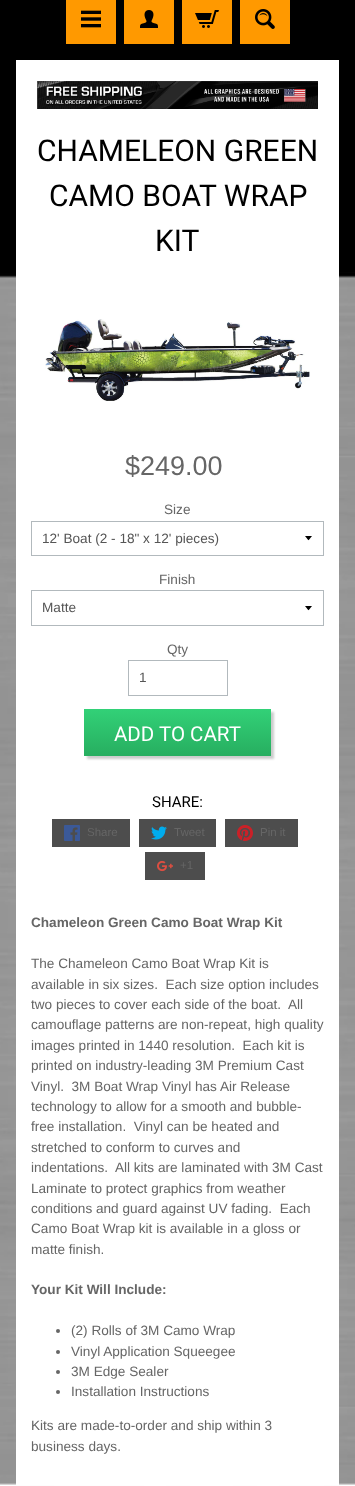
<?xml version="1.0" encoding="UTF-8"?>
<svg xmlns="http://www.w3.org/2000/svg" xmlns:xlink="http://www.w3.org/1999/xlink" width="355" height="1486">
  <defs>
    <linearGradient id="g1" gradientUnits="userSpaceOnUse" x1="178" y1="709" x2="178" y2="756"><stop offset="0" stop-color="#32d177" /><stop offset="1" stop-color="#27ae60" /></linearGradient>
  </defs>
  <rect width="100%" height="100%" fill="#ffffff" />
  <image x="0" y="0" width="355" height="1486" xlink:href="image1.png" />
  <rect x="66" width="50" height="44" fill="#ff9900" />
  <image x="81" y="10" width="20" height="18" xlink:href="image2.png" />
  <rect x="124" width="50" height="44" fill="#ff9900" />
  <image x="140" y="10" width="18" height="18" xlink:href="image3.png" />
  <rect x="182" width="50" height="44" fill="#ff9900" />
  <image x="195" y="10" width="24" height="18" xlink:href="image4.png" />
  <rect x="240" width="50" height="44" fill="#ff9900" />
  <image x="255" y="9" width="20" height="20" xlink:href="image5.png" />
  <rect x="16" y="60" width="323" height="1425" fill="#ffffff" />
  <image x="37" y="81" width="281" height="28" xlink:href="image6.png" />
  <image x="45" y="319" width="265" height="82" xlink:href="image7.png" />
  <path d="M 305 536 c 4.5 5.5 2.5 5.5 7 0 z" fill="#000000" />
  <rect x="31.5" y="521.5" width="292" height="34" fill="none" stroke="#b2b9bd" />
  <path d="M 305 606 c 4.5 5.5 2.5 5.5 7 0 z" fill="#000000" />
  <rect x="31.5" y="590.5" width="292" height="35" fill="none" stroke="#b2b9bd" />
  <rect x="128.5" y="660.5" width="99" height="35" fill="none" stroke="#b2b9bd" />
  <rect x="87" y="712" width="187" height="47" fill="#000000" fill-opacity="0.2" filter="blur(1px)" />
  <rect x="84" y="709" width="187" height="47" fill="url(#g1)" />
  <rect x="52" y="819" width="78" height="28" fill="#4d4d4d" />
  <image x="64" y="825" width="16" height="16" xlink:href="image8.png" />
  <rect x="139" y="819" width="77" height="28" fill="#4d4d4d" />
  <image x="151" y="826" width="16" height="14" xlink:href="image9.png" />
  <rect x="225" y="819" width="73" height="28" fill="#4d4d4d" />
  <image x="237" y="825" width="16" height="16" xlink:href="image10.png" />
  <rect x="145" y="852" width="60" height="28" fill="#4d4d4d" />
  <image x="157" y="860" width="16" height="12" xlink:href="image11.png" />
  <circle cx="58" cy="1331" r="2" fill="#666666" />
  <circle cx="58" cy="1352" r="2" fill="#666666" />
  <circle cx="58" cy="1372" r="2" fill="#666666" />
  <circle cx="58" cy="1392" r="2" fill="#666666" />
  <text x="37" y="161" style="font-family: Roboto; font-size: 30px; fill: #000000">CHAMELEON GREEN</text>
  <text x="49" y="206" style="font-family: Roboto; font-size: 30px; fill: #000000">CAMO BOAT WRAP</text>
  <text x="155" y="251" style="font-family: Roboto; font-size: 30px; fill: #000000">KIT</text>
  <text x="125" y="475" style="font-family: Liberation Sans; font-size: 27px; fill: #666666">$249.00</text>
  <text x="164" y="514" style="font-family: Liberation Sans; font-size: 13.6px; fill: #666666">Size</text>
  <text x="42" y="543" style="font-family: Liberation Sans; font-size: 13.6px; fill: #555555">12' Boat (2 - 18" x 12' pieces)</text>
  <text x="159" y="584" style="font-family: Liberation Sans; font-size: 13.6px; fill: #666666">Finish</text>
  <text x="42" y="612" style="font-family: Liberation Sans; font-size: 13.6px; fill: #555555">Matte</text>
  <text x="167" y="654" style="font-family: Liberation Sans; font-size: 13.6px; fill: #666666">Qty</text>
  <text x="139" y="682" style="font-family: Liberation Sans; font-size: 13.6px; fill: #555555">1</text>
  <text x="114" y="741" style="font-family: Roboto; font-size: 20.5px; fill: #ffffff">ADD TO CART</text>
  <text x="152" y="807" style="font-family: Roboto; font-size: 15px; fill: #000000">SHARE:</text>
  <text x="87" y="836" style="font-family: Liberation Sans; font-size: 11.5px; fill: #666666">Share</text>
  <text x="174" y="836" style="font-family: Liberation Sans; font-size: 11.5px; fill: #666666">Tweet</text>
  <text x="260" y="836" style="font-family: Liberation Sans; font-size: 11.5px; fill: #666666">Pin it</text>
  <text x="180" y="869" style="font-family: Liberation Sans; font-size: 11.5px; fill: #666666">+1</text>
  <text x="31" y="927" style="font-family: Liberation Sans; font-size: 13.6px; font-weight: bold; fill: #666666">Chameleon Green Camo Boat Wrap Kit</text>
  <text x="31" y="968" style="font-family: Liberation Sans; font-size: 13.6px; fill: #666666">The Chameleon Camo Boat Wrap Kit is</text>
  <text x="31" y="989" style="font-family: Liberation Sans; font-size: 13.6px; fill: #666666" xml:space="preserve">available in six sizes.  Each size option includes</text>
  <text x="31" y="1009" style="font-family: Liberation Sans; font-size: 13.6px; fill: #666666" xml:space="preserve">two pieces to cover each side of the boat.  All</text>
  <text x="31" y="1029" style="font-family: Liberation Sans; font-size: 13.6px; fill: #666666">camouflage patterns are non-repeat, high quality</text>
  <text x="31" y="1050" style="font-family: Liberation Sans; font-size: 13.6px; fill: #666666" xml:space="preserve">images printed in 1440 resolution.  Each kit is</text>
  <text x="31" y="1070" style="font-family: Liberation Sans; font-size: 13.6px; fill: #666666">printed on industry-leading 3M Premium Cast</text>
  <text x="31" y="1091" style="font-family: Liberation Sans; font-size: 13.6px; fill: #666666" xml:space="preserve">Vinyl.  3M Boat Wrap Vinyl has Air Release</text>
  <text x="31" y="1111" style="font-family: Liberation Sans; font-size: 13.6px; fill: #666666">technology to allow for a smooth and bubble-</text>
  <text x="31" y="1131" style="font-family: Liberation Sans; font-size: 13.6px; fill: #666666" xml:space="preserve">free installation.  Vinyl can be heated and</text>
  <text x="31" y="1152" style="font-family: Liberation Sans; font-size: 13.6px; fill: #666666">stretched to conform to curves and</text>
  <text x="31" y="1172" style="font-family: Liberation Sans; font-size: 13.6px; fill: #666666" xml:space="preserve">indentations.  All kits are laminated with 3M Cast</text>
  <text x="31" y="1193" style="font-family: Liberation Sans; font-size: 13.6px; fill: #666666">Laminate to protect graphics from weather</text>
  <text x="31" y="1213" style="font-family: Liberation Sans; font-size: 13.6px; fill: #666666" xml:space="preserve">conditions and guard against UV fading.  Each</text>
  <text x="31" y="1233" style="font-family: Liberation Sans; font-size: 13.6px; fill: #666666">Camo Boat Wrap kit is available in a gloss or</text>
  <text x="31" y="1254" style="font-family: Liberation Sans; font-size: 13.6px; fill: #666666">matte finish.</text>
  <text x="31" y="1294" style="font-family: Liberation Sans; font-size: 13.6px; font-weight: bold; fill: #666666">Your Kit Will Include:</text>
  <text x="71" y="1335" style="font-family: Liberation Sans; font-size: 13.6px; fill: #666666">(2) Rolls of 3M Camo Wrap</text>
  <text x="71" y="1356" style="font-family: Liberation Sans; font-size: 13.6px; fill: #666666">Vinyl Application Squeegee</text>
  <text x="71" y="1376" style="font-family: Liberation Sans; font-size: 13.6px; fill: #666666">3M Edge Sealer</text>
  <text x="71" y="1396" style="font-family: Liberation Sans; font-size: 13.6px; fill: #666666">Installation Instructions</text>
  <text x="31" y="1430" style="font-family: Liberation Sans; font-size: 13.6px; fill: #666666">Kits are made-to-order and ship within 3</text>
  <text x="31" y="1451" style="font-family: Liberation Sans; font-size: 13.6px; fill: #666666">business days.</text>
</svg>
